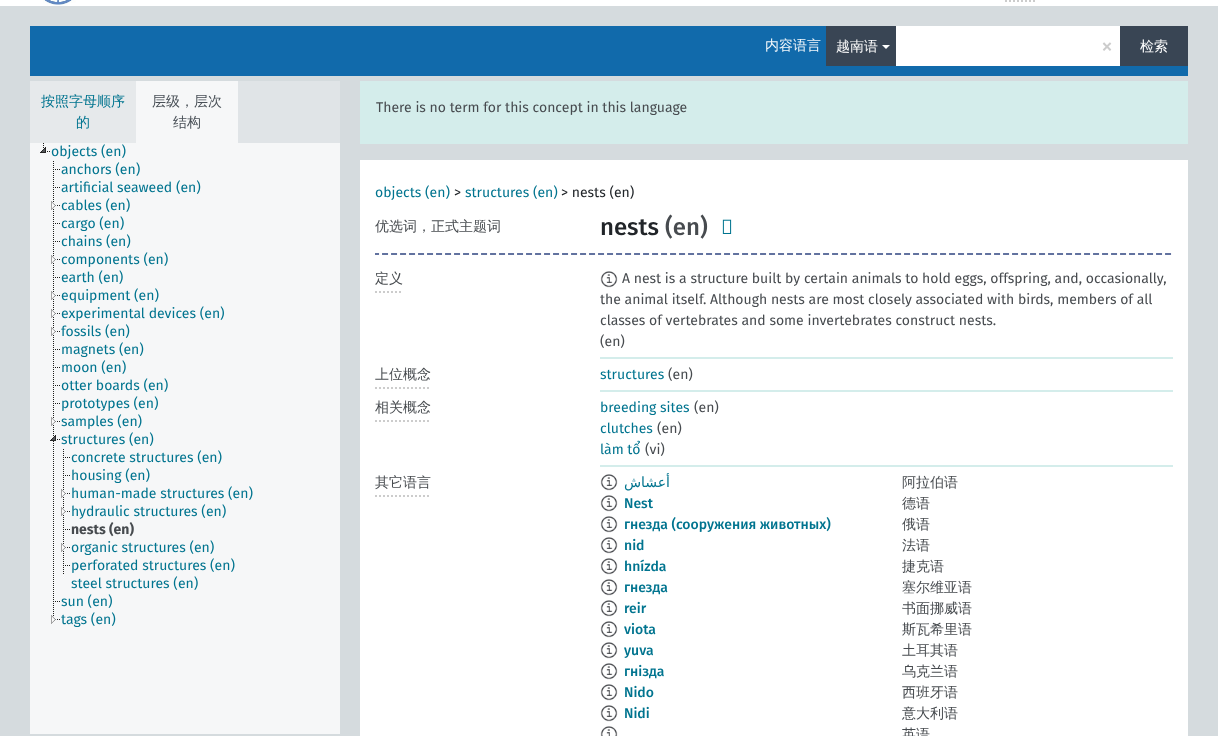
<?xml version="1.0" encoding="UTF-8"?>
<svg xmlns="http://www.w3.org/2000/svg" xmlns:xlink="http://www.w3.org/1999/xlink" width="1218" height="736">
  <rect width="100%" height="100%" fill="#d5dbde" />
  <rect width="1218" height="6" fill="#ffffff" />
  <image x="43" y="0" width="33" height="6" xlink:href="image1.png" />
  <path d="M 1005 1 h 32" fill="none" stroke="#cccccc" stroke-width="2" stroke-dasharray="2 2" />
  <rect x="30" y="26" width="1158" height="50" fill="#116aab" />
  <rect x="826" y="26" width="70" height="40" fill="#394554" />
  <path d="M 882 45 h 8 l -4 4 z" fill="#ffffff" />
  <rect x="896" y="26" width="224" height="40" fill="#ffffff" />
  <rect x="1120" y="26" width="68" height="40" fill="#394554" />
  <rect x="238" y="81" width="102" height="62" fill="#e0e4e7" />
  <rect x="30" y="81" width="106" height="62" fill="#e6e9eb" />
  <rect x="136" y="81" width="102" height="62" fill="#f6f7f8" />
  <rect x="30" y="143" width="310" height="591" fill="#f6f7f8" />
  <image x="40" y="143" width="10" height="10" xlink:href="image2.png" />
  <image x="53" y="161" width="1" height="17" xlink:href="image3.png" />
  <image x="55" y="169" width="5" height="1" xlink:href="image4.png" />
  <image x="53" y="179" width="1" height="17" xlink:href="image3.png" />
  <image x="55" y="187" width="5" height="1" xlink:href="image4.png" />
  <image x="53" y="197" width="1" height="17" xlink:href="image3.png" />
  <image x="51" y="201" width="9" height="9" xlink:href="image5.png" />
  <image x="53" y="215" width="1" height="17" xlink:href="image3.png" />
  <image x="55" y="223" width="5" height="1" xlink:href="image4.png" />
  <image x="53" y="233" width="1" height="17" xlink:href="image3.png" />
  <image x="55" y="241" width="5" height="1" xlink:href="image4.png" />
  <image x="53" y="251" width="1" height="17" xlink:href="image3.png" />
  <image x="51" y="255" width="9" height="9" xlink:href="image5.png" />
  <image x="53" y="269" width="1" height="17" xlink:href="image3.png" />
  <image x="55" y="277" width="5" height="1" xlink:href="image4.png" />
  <image x="53" y="287" width="1" height="17" xlink:href="image3.png" />
  <image x="51" y="291" width="9" height="9" xlink:href="image5.png" />
  <image x="53" y="305" width="1" height="17" xlink:href="image3.png" />
  <image x="51" y="309" width="9" height="9" xlink:href="image5.png" />
  <image x="53" y="323" width="1" height="17" xlink:href="image3.png" />
  <image x="51" y="327" width="9" height="9" xlink:href="image5.png" />
  <image x="53" y="341" width="1" height="17" xlink:href="image3.png" />
  <image x="55" y="349" width="5" height="1" xlink:href="image4.png" />
  <image x="53" y="359" width="1" height="17" xlink:href="image3.png" />
  <image x="55" y="367" width="5" height="1" xlink:href="image4.png" />
  <image x="53" y="377" width="1" height="17" xlink:href="image3.png" />
  <image x="55" y="385" width="5" height="1" xlink:href="image4.png" />
  <image x="53" y="395" width="1" height="17" xlink:href="image3.png" />
  <image x="55" y="403" width="5" height="1" xlink:href="image4.png" />
  <image x="53" y="413" width="1" height="17" xlink:href="image3.png" />
  <image x="51" y="417" width="9" height="9" xlink:href="image5.png" />
  <image x="53" y="431" width="1" height="161" xlink:href="image6.png" />
  <image x="50" y="435" width="10" height="6" xlink:href="image7.png" />
  <image x="63" y="449" width="1" height="17" xlink:href="image3.png" />
  <image x="65" y="457" width="5" height="1" xlink:href="image4.png" />
  <image x="63" y="467" width="1" height="17" xlink:href="image3.png" />
  <image x="65" y="475" width="5" height="1" xlink:href="image4.png" />
  <image x="63" y="485" width="1" height="17" xlink:href="image3.png" />
  <image x="61" y="489" width="9" height="9" xlink:href="image5.png" />
  <image x="63" y="503" width="1" height="17" xlink:href="image3.png" />
  <image x="61" y="507" width="9" height="9" xlink:href="image5.png" />
  <image x="63" y="521" width="1" height="17" xlink:href="image3.png" />
  <image x="65" y="529" width="5" height="1" xlink:href="image4.png" />
  <image x="63" y="539" width="1" height="17" xlink:href="image3.png" />
  <image x="61" y="543" width="9" height="9" xlink:href="image5.png" />
  <image x="63" y="557" width="1" height="17" xlink:href="image3.png" />
  <image x="65" y="565" width="5" height="1" xlink:href="image4.png" />
  <image x="53" y="593" width="1" height="17" xlink:href="image3.png" />
  <image x="55" y="601" width="5" height="1" xlink:href="image4.png" />
  <image x="51" y="611" width="9" height="13" xlink:href="image8.png" />
  <rect x="360" y="81" width="828" height="63" fill="#d4edeb" />
  <rect x="360" y="160" width="828" height="576" fill="#ffffff" />
  <image x="722" y="219" width="10" height="15" xlink:href="image9.png" />
  <image x="375" y="253" width="797" height="2" xlink:href="image10.png" />
  <path d="M 375 292 h 28" fill="none" stroke="#cccccc" stroke-width="2" stroke-dasharray="2 2" />
  <rect x="600" y="357" width="573" height="2" fill="#d4edeb" />
  <image x="600" y="271" width="18" height="17" xlink:href="image11.png" />
  <path d="M 375 388 h 56" fill="none" stroke="#cccccc" stroke-width="2" stroke-dasharray="2 2" />
  <rect x="600" y="390" width="573" height="2" fill="#d4edeb" />
  <path d="M 375 421 h 56" fill="none" stroke="#cccccc" stroke-width="2" stroke-dasharray="2 2" />
  <rect x="600" y="465" width="573" height="2" fill="#d4edeb" />
  <path d="M 375 496 h 56" fill="none" stroke="#cccccc" stroke-width="2" stroke-dasharray="2 2" />
  <image x="600" y="474" width="18" height="17" xlink:href="image12.png" />
  <image x="600" y="495" width="18" height="17" xlink:href="image11.png" />
  <image x="600" y="516" width="18" height="17" xlink:href="image11.png" />
  <image x="600" y="537" width="18" height="17" xlink:href="image13.png" />
  <image x="600" y="558" width="18" height="17" xlink:href="image11.png" />
  <image x="600" y="579" width="18" height="17" xlink:href="image11.png" />
  <image x="600" y="600" width="18" height="17" xlink:href="image12.png" />
  <image x="600" y="621" width="18" height="17" xlink:href="image11.png" />
  <image x="600" y="642" width="18" height="17" xlink:href="image12.png" />
  <image x="600" y="663" width="18" height="17" xlink:href="image11.png" />
  <image x="600" y="684" width="18" height="17" xlink:href="image11.png" />
  <image x="600" y="705" width="18" height="17" xlink:href="image11.png" />
  <image x="600" y="726" width="18" height="10" xlink:href="image14.png" />
  <text x="765" y="50" style="font-family: WenQuanYi Zen Hei; font-size: 14px; font-weight: 500; fill: #f3f8fb">内容语言</text>
  <text x="836" y="51" style="font-family: WenQuanYi Zen Hei; font-size: 14px; font-weight: 500; fill: #ffffff">越南语</text>
  <text x="1101" y="54" style="font-family: Fira Sans; font-size: 24px; fill: #cccccc">×</text>
  <text x="1140" y="51" style="font-family: WenQuanYi Zen Hei; font-size: 14px; font-weight: 500; fill: #ffffff">检索</text>
  <text x="41" y="106" style="font-family: WenQuanYi Zen Hei; font-size: 14px; font-weight: 500; fill: #00748f">按照字母顺序</text>
  <text x="76" y="127" style="font-family: WenQuanYi Zen Hei; font-size: 14px; font-weight: 500; fill: #00748f">的</text>
  <text x="152" y="106" style="font-family: WenQuanYi Zen Hei; font-size: 14px; font-weight: 500; fill: #495057">层级，层次</text>
  <text x="173" y="127" style="font-family: WenQuanYi Zen Hei; font-size: 14px; font-weight: 500; fill: #495057">结构</text>
  <text x="51" y="156" style="font-family: Fira Sans; font-size: 14px; fill: #00748f">objects (en)</text>
  <text x="61" y="174" style="font-family: Fira Sans; font-size: 14px; fill: #00748f">anchors (en)</text>
  <text x="61" y="192" style="font-family: Fira Sans; font-size: 14px; fill: #00748f">artificial seaweed (en)</text>
  <text x="61" y="210" style="font-family: Fira Sans; font-size: 14px; fill: #00748f">cables (en)</text>
  <text x="61" y="228" style="font-family: Fira Sans; font-size: 14px; fill: #00748f">cargo (en)</text>
  <text x="61" y="246" style="font-family: Fira Sans; font-size: 14px; fill: #00748f">chains (en)</text>
  <text x="61" y="264" style="font-family: Fira Sans; font-size: 14px; fill: #00748f">components (en)</text>
  <text x="61" y="282" style="font-family: Fira Sans; font-size: 14px; fill: #00748f">earth (en)</text>
  <text x="61" y="300" style="font-family: Fira Sans; font-size: 14px; fill: #00748f">equipment (en)</text>
  <text x="61" y="318" style="font-family: Fira Sans; font-size: 14px; fill: #00748f">experimental devices (en)</text>
  <text x="61" y="336" style="font-family: Fira Sans; font-size: 14px; fill: #00748f">fossils (en)</text>
  <text x="61" y="354" style="font-family: Fira Sans; font-size: 14px; fill: #00748f">magnets (en)</text>
  <text x="61" y="372" style="font-family: Fira Sans; font-size: 14px; fill: #00748f">moon (en)</text>
  <text x="61" y="390" style="font-family: Fira Sans; font-size: 14px; fill: #00748f">otter boards (en)</text>
  <text x="61" y="408" style="font-family: Fira Sans; font-size: 14px; fill: #00748f">prototypes (en)</text>
  <text x="61" y="426" style="font-family: Fira Sans; font-size: 14px; fill: #00748f">samples (en)</text>
  <text x="61" y="444" style="font-family: Fira Sans; font-size: 14px; fill: #00748f">structures (en)</text>
  <text x="71" y="462" style="font-family: Fira Sans; font-size: 14px; fill: #00748f">concrete structures (en)</text>
  <text x="71" y="480" style="font-family: Fira Sans; font-size: 14px; fill: #00748f">housing (en)</text>
  <text x="71" y="498" style="font-family: Fira Sans; font-size: 14px; fill: #00748f">human-made structures (en)</text>
  <text x="71" y="516" style="font-family: Fira Sans; font-size: 14px; fill: #00748f">hydraulic structures (en)</text>
  <text x="71" y="534" style="font-family: Fira Sans; font-size: 14px; font-weight: bold; fill: #474b4f">nests (en)</text>
  <text x="71" y="552" style="font-family: Fira Sans; font-size: 14px; fill: #00748f">organic structures (en)</text>
  <text x="71" y="570" style="font-family: Fira Sans; font-size: 14px; fill: #00748f">perforated structures (en)</text>
  <text x="71" y="588" style="font-family: Fira Sans; font-size: 14px; fill: #00748f">steel structures (en)</text>
  <text x="61" y="606" style="font-family: Fira Sans; font-size: 14px; fill: #00748f">sun (en)</text>
  <text x="61" y="624" style="font-family: Fira Sans; font-size: 14px; fill: #00748f">tags (en)</text>
  <text x="376" y="112" style="font-family: Fira Sans; font-size: 14px; fill: #474b4f">There is no term for this concept in this language</text>
  <text x="375" y="197" style="font-family: Fira Sans; font-size: 14px; fill: #00748f">objects (en)</text>
  <text x="454" y="197" style="font-family: Fira Sans; font-size: 14px; fill: #212529">&gt;</text>
  <text x="465" y="197" style="font-family: Fira Sans; font-size: 14px; fill: #00748f">structures (en)</text>
  <text x="561" y="197" style="font-family: Fira Sans; font-size: 14px; fill: #212529">&gt; nests (en)</text>
  <text x="375" y="231" style="font-family: WenQuanYi Zen Hei; font-size: 14px; font-weight: 500; fill: #474b4f">优选词，正式主题词</text>
  <text x="600" y="235" style="font-family: Fira Sans; font-size: 24px; font-weight: 500; fill: #212529">nests</text>
  <text x="665" y="235" style="font-family: Fira Sans; font-size: 24px; font-weight: 500; fill: #474b4f">(en)</text>
  <text x="375" y="283" style="font-family: WenQuanYi Zen Hei; font-size: 14px; font-weight: 500; fill: #474b4f">定义</text>
  <text x="622" y="283" style="font-family: Fira Sans; font-size: 14px; fill: #474b4f">A nest is a structure built by certain animals to hold eggs, offspring, and, occasionally,</text>
  <text x="600" y="304" style="font-family: Fira Sans; font-size: 14px; fill: #474b4f">the animal itself. Although nests are most closely associated with birds, members of all</text>
  <text x="600" y="325" style="font-family: Fira Sans; font-size: 14px; fill: #474b4f">classes of vertebrates and some invertebrates construct nests.</text>
  <text x="600" y="346" style="font-family: Fira Sans; font-size: 14px; fill: #474b4f">(en)</text>
  <text x="375" y="379" style="font-family: WenQuanYi Zen Hei; font-size: 14px; font-weight: 500; fill: #474b4f">上位概念</text>
  <text x="600" y="379" style="font-family: Fira Sans; font-size: 14px; fill: #00748f">structures</text>
  <text x="668" y="379" style="font-family: Fira Sans; font-size: 14px; fill: #474b4f">(en)</text>
  <text x="375" y="412" style="font-family: WenQuanYi Zen Hei; font-size: 14px; font-weight: 500; fill: #474b4f">相关概念</text>
  <text x="600" y="412" style="font-family: Fira Sans; font-size: 14px; fill: #00748f">breeding sites</text>
  <text x="694" y="412" style="font-family: Fira Sans; font-size: 14px; fill: #474b4f">(en)</text>
  <text x="600" y="433" style="font-family: Fira Sans; font-size: 14px; fill: #00748f">clutches</text>
  <text x="657" y="433" style="font-family: Fira Sans; font-size: 14px; fill: #474b4f">(en)</text>
  <text x="600" y="454" style="font-family: Fira Sans; font-size: 14px; fill: #00748f">làm tổ</text>
  <text x="645" y="454" style="font-family: Fira Sans; font-size: 14px; fill: #474b4f">(vi)</text>
  <text x="375" y="487" style="font-family: WenQuanYi Zen Hei; font-size: 14px; font-weight: 500; fill: #474b4f">其它语言</text>
  <text x="670" y="487" style="font-family: DejaVu Sans; font-size: 14px; direction: rtl; fill: #00748f">أعشاش</text>
  <text x="902" y="487" style="font-family: WenQuanYi Zen Hei; font-size: 14px; font-weight: 500; fill: #474b4f">阿拉伯语</text>
  <text x="624" y="508" style="font-family: Fira Sans; font-size: 14px; font-weight: 500; fill: #00748f">Nest</text>
  <text x="902" y="508" style="font-family: WenQuanYi Zen Hei; font-size: 14px; font-weight: 500; fill: #474b4f">德语</text>
  <text x="624" y="529" style="font-family: Fira Sans; font-size: 14px; font-weight: 500; fill: #00748f">гнезда (сооружения животных)</text>
  <text x="902" y="529" style="font-family: WenQuanYi Zen Hei; font-size: 14px; font-weight: 500; fill: #474b4f">俄语</text>
  <text x="624" y="550" style="font-family: Fira Sans; font-size: 14px; font-weight: 500; fill: #00748f">nid</text>
  <text x="902" y="550" style="font-family: WenQuanYi Zen Hei; font-size: 14px; font-weight: 500; fill: #474b4f">法语</text>
  <text x="624" y="571" style="font-family: Fira Sans; font-size: 14px; font-weight: 500; fill: #00748f">hnízda</text>
  <text x="902" y="571" style="font-family: WenQuanYi Zen Hei; font-size: 14px; font-weight: 500; fill: #474b4f">捷克语</text>
  <text x="624" y="592" style="font-family: Fira Sans; font-size: 14px; font-weight: 500; fill: #00748f">гнезда</text>
  <text x="902" y="592" style="font-family: WenQuanYi Zen Hei; font-size: 14px; font-weight: 500; fill: #474b4f">塞尔维亚语</text>
  <text x="624" y="613" style="font-family: Fira Sans; font-size: 14px; font-weight: 500; fill: #00748f">reir</text>
  <text x="902" y="613" style="font-family: WenQuanYi Zen Hei; font-size: 14px; font-weight: 500; fill: #474b4f">书面挪威语</text>
  <text x="624" y="634" style="font-family: Fira Sans; font-size: 14px; font-weight: 500; fill: #00748f">viota</text>
  <text x="902" y="634" style="font-family: WenQuanYi Zen Hei; font-size: 14px; font-weight: 500; fill: #474b4f">斯瓦希里语</text>
  <text x="624" y="655" style="font-family: Fira Sans; font-size: 14px; font-weight: 500; fill: #00748f">yuva</text>
  <text x="902" y="655" style="font-family: WenQuanYi Zen Hei; font-size: 14px; font-weight: 500; fill: #474b4f">土耳其语</text>
  <text x="624" y="676" style="font-family: Fira Sans; font-size: 14px; font-weight: 500; fill: #00748f">гнізда</text>
  <text x="902" y="676" style="font-family: WenQuanYi Zen Hei; font-size: 14px; font-weight: 500; fill: #474b4f">乌克兰语</text>
  <text x="624" y="697" style="font-family: Fira Sans; font-size: 14px; font-weight: 500; fill: #00748f">Nido</text>
  <text x="902" y="697" style="font-family: WenQuanYi Zen Hei; font-size: 14px; font-weight: 500; fill: #474b4f">西班牙语</text>
  <text x="624" y="718" style="font-family: Fira Sans; font-size: 14px; font-weight: 500; fill: #00748f">Nidi</text>
  <text x="902" y="718" style="font-family: WenQuanYi Zen Hei; font-size: 14px; font-weight: 500; fill: #474b4f">意大利语</text>
  <text x="902" y="739" style="font-family: WenQuanYi Zen Hei; font-size: 14px; font-weight: 500; fill: #474b4f">英语</text>
</svg>
